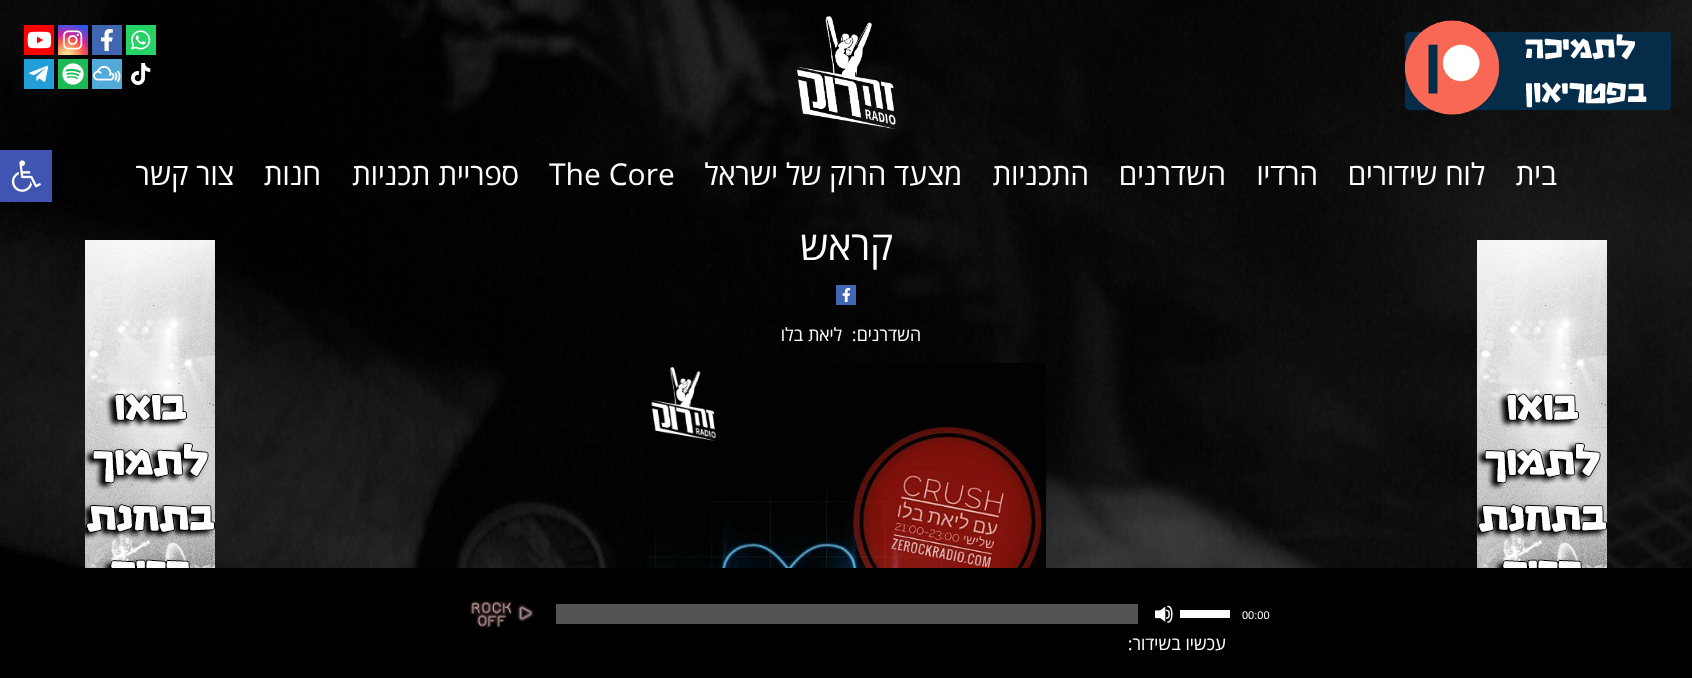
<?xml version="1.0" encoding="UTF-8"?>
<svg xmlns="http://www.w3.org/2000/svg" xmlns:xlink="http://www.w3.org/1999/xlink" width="1692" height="678">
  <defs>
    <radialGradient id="g1" gradientUnits="userSpaceOnUse" cx="67" cy="57" r="38"><stop offset="0" stop-color="#fdf497" /><stop offset="0.05" stop-color="#fdf497" /><stop offset="0.45" stop-color="#fd5949" /><stop offset="0.6" stop-color="#d6249f" /><stop offset="0.9" stop-color="#285aeb" /></radialGradient>
  </defs>
  <rect width="100%" height="100%" fill="#ffffff" />
  <image x="0" y="0" width="1692" height="568" xlink:href="image1.png" />
  <image x="1405" y="20" width="266" height="95" xlink:href="image2.png" />
  <rect x="126" y="25" width="30" height="30" fill="#25d366" />
  <image x="131" y="30" width="20" height="20" xlink:href="image3.png" />
  <rect x="92" y="25" width="30" height="30" fill="#4267b2" />
  <image x="101" y="29" width="12" height="22" xlink:href="image4.png" />
  <rect x="58" y="25" width="30" height="30" fill="url(#g1)" />
  <image x="63" y="30" width="20" height="20" xlink:href="image5.png" />
  <rect x="24" y="25" width="30" height="30" fill="#ff0000" />
  <image x="27" y="31" width="25" height="18" xlink:href="image6.png" />
  <rect x="130" y="59" width="23" height="30" fill="#000000" />
  <image x="131" y="63" width="20" height="22" xlink:href="image7.png" />
  <rect x="92" y="59" width="30" height="30" fill="#52aad8" />
  <image x="93" y="65" width="28" height="17" xlink:href="image8.png" />
  <rect x="58" y="59" width="30" height="30" fill="#1db954" />
  <image x="62" y="63" width="22" height="22" xlink:href="image9.png" />
  <rect x="24" y="59" width="30" height="30" fill="#229ed9" />
  <image x="29" y="65" width="20" height="17" xlink:href="image10.png" />
  <image x="797" y="16" width="99" height="113" xlink:href="image11.png" />
  <rect y="150" width="52" height="52" fill="#4054b2" />
  <image x="11" y="160" width="30" height="32" xlink:href="image12.png" />
  <image x="1477" y="240" width="130" height="328" xlink:href="image13.png" />
  <rect x="836" y="285" width="20" height="20" fill="#4267b2" />
  <image x="842" y="288" width="9" height="14" xlink:href="image14.png" />
  <image x="646" y="363" width="400" height="205" xlink:href="image15.png" />
  <image x="85" y="240" width="130" height="328" xlink:href="image13.png" />
  <rect y="568" width="1692" height="110" fill="#000000" />
  <rect x="1180" y="610" width="50" height="8" fill="#ffffff" />
  <image x="1155" y="605" width="18" height="18" xlink:href="image16.png" />
  <rect x="556" y="604" width="582" height="20" fill="#545454" />
  <image x="470" y="601" width="64" height="27" xlink:href="image17.png" />
  <text x="1557" y="185" style="font-family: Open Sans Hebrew; font-size: 30px; direction: rtl; fill: #ffffff">בית</text>
  <text x="1485" y="185" style="font-family: Open Sans Hebrew; font-size: 30px; direction: rtl; fill: #ffffff">לוח שידורים</text>
  <text x="1318" y="185" style="font-family: Open Sans Hebrew; font-size: 30px; direction: rtl; fill: #ffffff">הרדיו</text>
  <text x="1226" y="185" style="font-family: Open Sans Hebrew; font-size: 30px; direction: rtl; fill: #ffffff">השדרנים</text>
  <text x="1089" y="185" style="font-family: Open Sans Hebrew; font-size: 30px; direction: rtl; fill: #ffffff">התכניות</text>
  <text x="962" y="185" style="font-family: Open Sans Hebrew; font-size: 30px; direction: rtl; fill: #ffffff">מצעד הרוק של ישראל</text>
  <text x="549" y="185" style="font-family: Open Sans Hebrew; font-size: 30px; fill: #ffffff">The Core</text>
  <text x="519" y="185" style="font-family: Open Sans Hebrew; font-size: 30px; direction: rtl; fill: #ffffff">ספריית תכניות</text>
  <text x="321" y="185" style="font-family: Open Sans Hebrew; font-size: 30px; direction: rtl; fill: #ffffff">חנות</text>
  <text x="234" y="185" style="font-family: Open Sans Hebrew; font-size: 30px; direction: rtl; fill: #ffffff">צור קשר</text>
  <text x="893" y="260" style="font-family: Open Sans Hebrew; font-size: 40px; direction: rtl; fill: #ffffff">קראש</text>
  <text x="921" y="341" style="font-family: Open Sans Hebrew; font-size: 18px; direction: rtl; fill: #ffffff">השדרנים:</text>
  <text x="842" y="341" style="font-family: Open Sans Hebrew; font-size: 18px; direction: rtl; fill: #ffffff">ליאת בלו</text>
  <text x="1242" y="619" style="font-family: Liberation Sans; font-size: 11px; fill: #ffffff">00:00</text>
  <text x="1226" y="650" style="font-family: Open Sans Hebrew; font-size: 18px; direction: rtl; fill: #ffffff">עכשיו בשידור:</text>
</svg>
